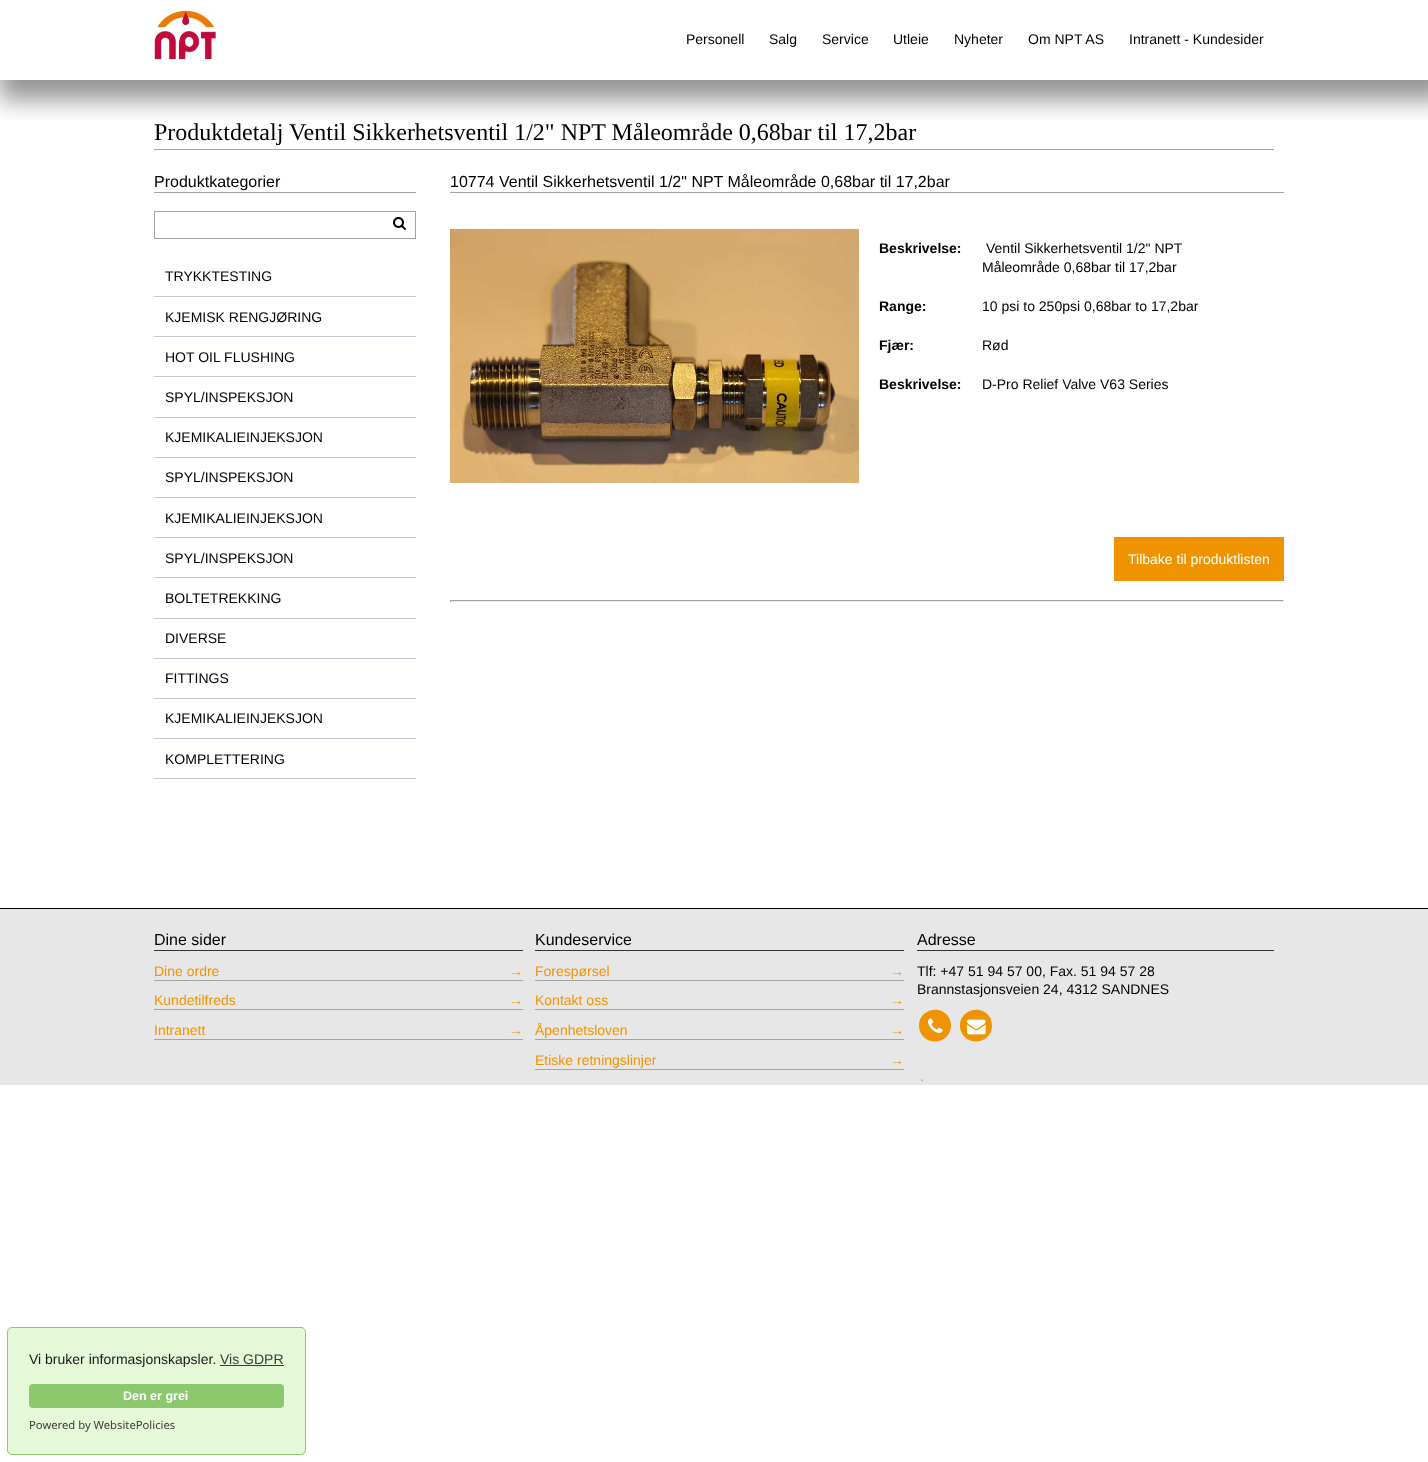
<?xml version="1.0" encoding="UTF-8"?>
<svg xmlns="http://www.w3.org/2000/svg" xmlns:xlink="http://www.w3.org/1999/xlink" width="1428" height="1462">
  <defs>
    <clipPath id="clip1"><rect x="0" y="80" width="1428" height="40" /></clipPath>
  </defs>
  <rect width="100%" height="100%" fill="#ffffff" />
  <g clip-path="url(#clip1)">
    <rect x="-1" width="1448" height="100" fill="#000000" fill-opacity="0.42" filter="blur(12px)" />
  </g>
  <image x="154" y="10" width="63" height="50" xlink:href="image1.png" />
  <rect x="154" y="149" width="1120" height="1" fill="#a4a4a4" />
  <rect x="450" y="192" width="834" height="1" fill="#a4a4a4" />
  <image x="450" y="229" width="409" height="254" xlink:href="image2.png" />
  <rect x="1114" y="537" width="170" height="44" fill="#f09300" />
  <rect x="450" y="600" width="834" height="1" fill="#9f9f9f" />
  <rect x="1283" y="600" width="1" height="2" fill="#eeeeee" />
  <rect x="450" y="601" width="834" height="1" fill="#eeeeee" />
  <rect x="450" y="600" width="1" height="2" fill="#9f9f9f" />
  <rect x="154" y="192" width="262" height="1" fill="#a4a4a4" />
  <rect x="154.5" y="211.5" width="261" height="27" fill="none" stroke="#a4a4a4" />
  <image x="393" y="217" width="13" height="13" xlink:href="image3.png" />
  <rect x="154" y="296" width="262" height="1" fill="#c1c9d5" />
  <rect x="154" y="336" width="262" height="1" fill="#c1c9d5" />
  <rect x="154" y="376" width="262" height="1" fill="#c1c9d5" />
  <rect x="154" y="417" width="262" height="1" fill="#c1c9d5" />
  <rect x="154" y="457" width="262" height="1" fill="#c1c9d5" />
  <rect x="154" y="497" width="262" height="1" fill="#c1c9d5" />
  <rect x="154" y="537" width="262" height="1" fill="#c1c9d5" />
  <rect x="154" y="577" width="262" height="1" fill="#c1c9d5" />
  <rect x="154" y="618" width="262" height="1" fill="#c1c9d5" />
  <rect x="154" y="658" width="262" height="1" fill="#c1c9d5" />
  <rect x="154" y="698" width="262" height="1" fill="#c1c9d5" />
  <rect x="154" y="738" width="262" height="1" fill="#c1c9d5" />
  <rect x="154" y="778" width="262" height="1" fill="#c1c9d5" />
  <rect y="909" width="1428" height="176" fill="#e7e7e7" />
  <rect y="908" width="1428" height="1" fill="#000000" />
  <rect x="154" y="950" width="369" height="1" fill="#333333" />
  <rect x="154" y="980" width="369" height="1" fill="#a4a4a4" />
  <rect x="154" y="1009" width="369" height="1" fill="#a4a4a4" />
  <rect x="154" y="1039" width="369" height="1" fill="#a4a4a4" />
  <rect x="535" y="950" width="369" height="1" fill="#333333" />
  <rect x="535" y="980" width="369" height="1" fill="#a4a4a4" />
  <rect x="535" y="1009" width="369" height="1" fill="#a4a4a4" />
  <rect x="535" y="1039" width="369" height="1" fill="#a4a4a4" />
  <rect x="535" y="1069" width="369" height="1" fill="#a4a4a4" />
  <rect x="917" y="950" width="357" height="1" fill="#333333" />
  <path d="M 949 1017.5 c 1.5 3 2 6 2 9 c -1 16 -22 20.5 -30 7 c -1.5 -2.5 -2 -5.5 -2 -9 c 1 -15.5 22 -20.5 30 -7 z" fill="#f09300" />
  <image x="928" y="1018" width="15" height="15" xlink:href="image4.png" />
  <path d="M 990 1017.5 c 1.5 3 2 6 2 9 c -1 16 -22 20.5 -30 7 c -1.5 -2.5 -2 -5.5 -2 -9 c 1 -15.5 22 -20.5 30 -7 z" fill="#f09300" />
  <image x="967" y="1019" width="19" height="16" xlink:href="image5.png" />
  <rect x="7.5" y="1327.5" width="298" height="127" rx="4.5" fill="#e5f8d8" stroke="#8cc86e" />
  <rect x="220" y="1365" width="64" height="1" fill="#3c3c3c" />
  <rect x="29" y="1384" width="255" height="24" rx="4" fill="#8cc86e" />
  <text x="686" y="44" style="font-family: Liberation Sans; font-size: 14px; fill: #000000">Personell</text>
  <text x="769" y="44" style="font-family: Liberation Sans; font-size: 14px; fill: #000000">Salg</text>
  <text x="822" y="44" style="font-family: Liberation Sans; font-size: 14px; fill: #000000">Service</text>
  <text x="893" y="44" style="font-family: Liberation Sans; font-size: 14px; fill: #000000">Utleie</text>
  <text x="954" y="44" style="font-family: Liberation Sans; font-size: 14px; fill: #000000">Nyheter</text>
  <text x="1028" y="44" style="font-family: Liberation Sans; font-size: 14px; fill: #000000">Om NPT AS</text>
  <text x="1129" y="44" style="font-family: Liberation Sans; font-size: 14px; fill: #000000">Intranett - Kundesider</text>
  <text x="154" y="140" style="font-family: Liberation Serif; font-size: 24px; fill: #000000">Produktdetalj Ventil Sikkerhetsventil 1/2" NPT Måleområde 0,68bar til 17,2bar</text>
  <text x="450" y="187" style="font-family: Liberation Sans; font-size: 16px; fill: #000000">10774 Ventil Sikkerhetsventil 1/2" NPT Måleområde 0,68bar til 17,2bar</text>
  <text x="879" y="253" style="font-family: Liberation Sans; font-size: 14px; font-weight: bold; fill: #000000">Beskrivelse:</text>
  <text x="986" y="253" style="font-family: Liberation Sans; font-size: 14px; fill: #000000">Ventil Sikkerhetsventil 1/2" NPT</text>
  <text x="982" y="272" style="font-family: Liberation Sans; font-size: 14px; fill: #000000">Måleområde 0,68bar til 17,2bar</text>
  <text x="879" y="311" style="font-family: Liberation Sans; font-size: 14px; font-weight: bold; fill: #000000">Range:</text>
  <text x="982" y="311" style="font-family: Liberation Sans; font-size: 14px; fill: #000000">10 psi to 250psi 0,68bar to 17,2bar</text>
  <text x="879" y="350" style="font-family: Liberation Sans; font-size: 14px; font-weight: bold; fill: #000000">Fjær:</text>
  <text x="982" y="350" style="font-family: Liberation Sans; font-size: 14px; fill: #000000">Rød</text>
  <text x="879" y="389" style="font-family: Liberation Sans; font-size: 14px; font-weight: bold; fill: #000000">Beskrivelse:</text>
  <text x="982" y="389" style="font-family: Liberation Sans; font-size: 14px; fill: #000000">D-Pro Relief Valve V63 Series</text>
  <text x="1128" y="564" style="font-family: Liberation Sans; font-size: 14px; fill: #ffffff">Tilbake til produktlisten</text>
  <text x="154" y="187" style="font-family: Liberation Sans; font-size: 16px; fill: #000000">Produktkategorier</text>
  <text x="165" y="281" style="font-family: Liberation Sans; font-size: 14px; fill: #000000">TRYKKTESTING</text>
  <text x="165" y="322" style="font-family: Liberation Sans; font-size: 14px; fill: #000000">KJEMISK RENGJØRING</text>
  <text x="165" y="362" style="font-family: Liberation Sans; font-size: 14px; fill: #000000">HOT OIL FLUSHING</text>
  <text x="165" y="402" style="font-family: Liberation Sans; font-size: 14px; fill: #000000">SPYL/INSPEKSJON</text>
  <text x="165" y="442" style="font-family: Liberation Sans; font-size: 14px; fill: #000000">KJEMIKALIEINJEKSJON</text>
  <text x="165" y="482" style="font-family: Liberation Sans; font-size: 14px; fill: #000000">SPYL/INSPEKSJON</text>
  <text x="165" y="523" style="font-family: Liberation Sans; font-size: 14px; fill: #000000">KJEMIKALIEINJEKSJON</text>
  <text x="165" y="563" style="font-family: Liberation Sans; font-size: 14px; fill: #000000">SPYL/INSPEKSJON</text>
  <text x="165" y="603" style="font-family: Liberation Sans; font-size: 14px; fill: #000000">BOLTETREKKING</text>
  <text x="165" y="643" style="font-family: Liberation Sans; font-size: 14px; fill: #000000">DIVERSE</text>
  <text x="165" y="683" style="font-family: Liberation Sans; font-size: 14px; fill: #000000">FITTINGS</text>
  <text x="165" y="723" style="font-family: Liberation Sans; font-size: 14px; fill: #000000">KJEMIKALIEINJEKSJON</text>
  <text x="165" y="764" style="font-family: Liberation Sans; font-size: 14px; fill: #000000">KOMPLETTERING</text>
  <text x="154" y="945" style="font-family: Liberation Sans; font-size: 16px; fill: #000000">Dine sider</text>
  <text x="154" y="976" style="font-family: Liberation Sans; font-size: 14px; fill: #f09300">Dine ordre</text>
  <text x="509" y="976" style="font-family: Liberation Sans; font-size: 14px; fill: #f09300">→</text>
  <text x="154" y="1005" style="font-family: Liberation Sans; font-size: 14px; fill: #f09300">Kundetilfreds</text>
  <text x="509" y="1005" style="font-family: Liberation Sans; font-size: 14px; fill: #f09300">→</text>
  <text x="154" y="1035" style="font-family: Liberation Sans; font-size: 14px; fill: #f09300">Intranett</text>
  <text x="509" y="1035" style="font-family: Liberation Sans; font-size: 14px; fill: #f09300">→</text>
  <text x="535" y="945" style="font-family: Liberation Sans; font-size: 16px; fill: #000000">Kundeservice</text>
  <text x="535" y="976" style="font-family: Liberation Sans; font-size: 14px; fill: #f09300">Forespørsel</text>
  <text x="890" y="976" style="font-family: Liberation Sans; font-size: 14px; fill: #f09300">→</text>
  <text x="535" y="1005" style="font-family: Liberation Sans; font-size: 14px; fill: #f09300">Kontakt oss</text>
  <text x="890" y="1005" style="font-family: Liberation Sans; font-size: 14px; fill: #f09300">→</text>
  <text x="535" y="1035" style="font-family: Liberation Sans; font-size: 14px; fill: #f09300">Åpenhetsloven</text>
  <text x="890" y="1035" style="font-family: Liberation Sans; font-size: 14px; fill: #f09300">→</text>
  <text x="535" y="1065" style="font-family: Liberation Sans; font-size: 14px; fill: #f09300">Etiske retningslinjer</text>
  <text x="890" y="1065" style="font-family: Liberation Sans; font-size: 14px; fill: #f09300">→</text>
  <text x="917" y="945" style="font-family: Liberation Sans; font-size: 16px; fill: #000000">Adresse</text>
  <text x="917" y="976" style="font-family: Liberation Sans; font-size: 14px; fill: #000000">Tlf: +47 51 94 57 00, Fax. 51 94 57 28</text>
  <text x="917" y="994" style="font-family: Liberation Sans; font-size: 14px; fill: #000000">Brannstasjonsveien 24, 4312 SANDNES</text>
  <text x="920" y="1081" style="font-family: Liberation Sans; font-size: 14px; fill: #f09300">.</text>
  <text x="29" y="1364" style="font-family: Liberation Sans; font-size: 14px; fill: #1a1a1a">Vi bruker informasjonskapsler.</text>
  <text x="220" y="1364" style="font-family: Liberation Sans; font-size: 14px; fill: #3c3c3c">Vis GDPR</text>
  <text x="123" y="1400" style="font-family: Liberation Sans; font-size: 12.5px; font-weight: bold; fill: #ffffff">Den er grei</text>
  <text x="29" y="1429" style="font-family: Noto Sans; font-size: 11.25px; fill: #3c3c3c">Powered by WebsitePolicies</text>
</svg>
